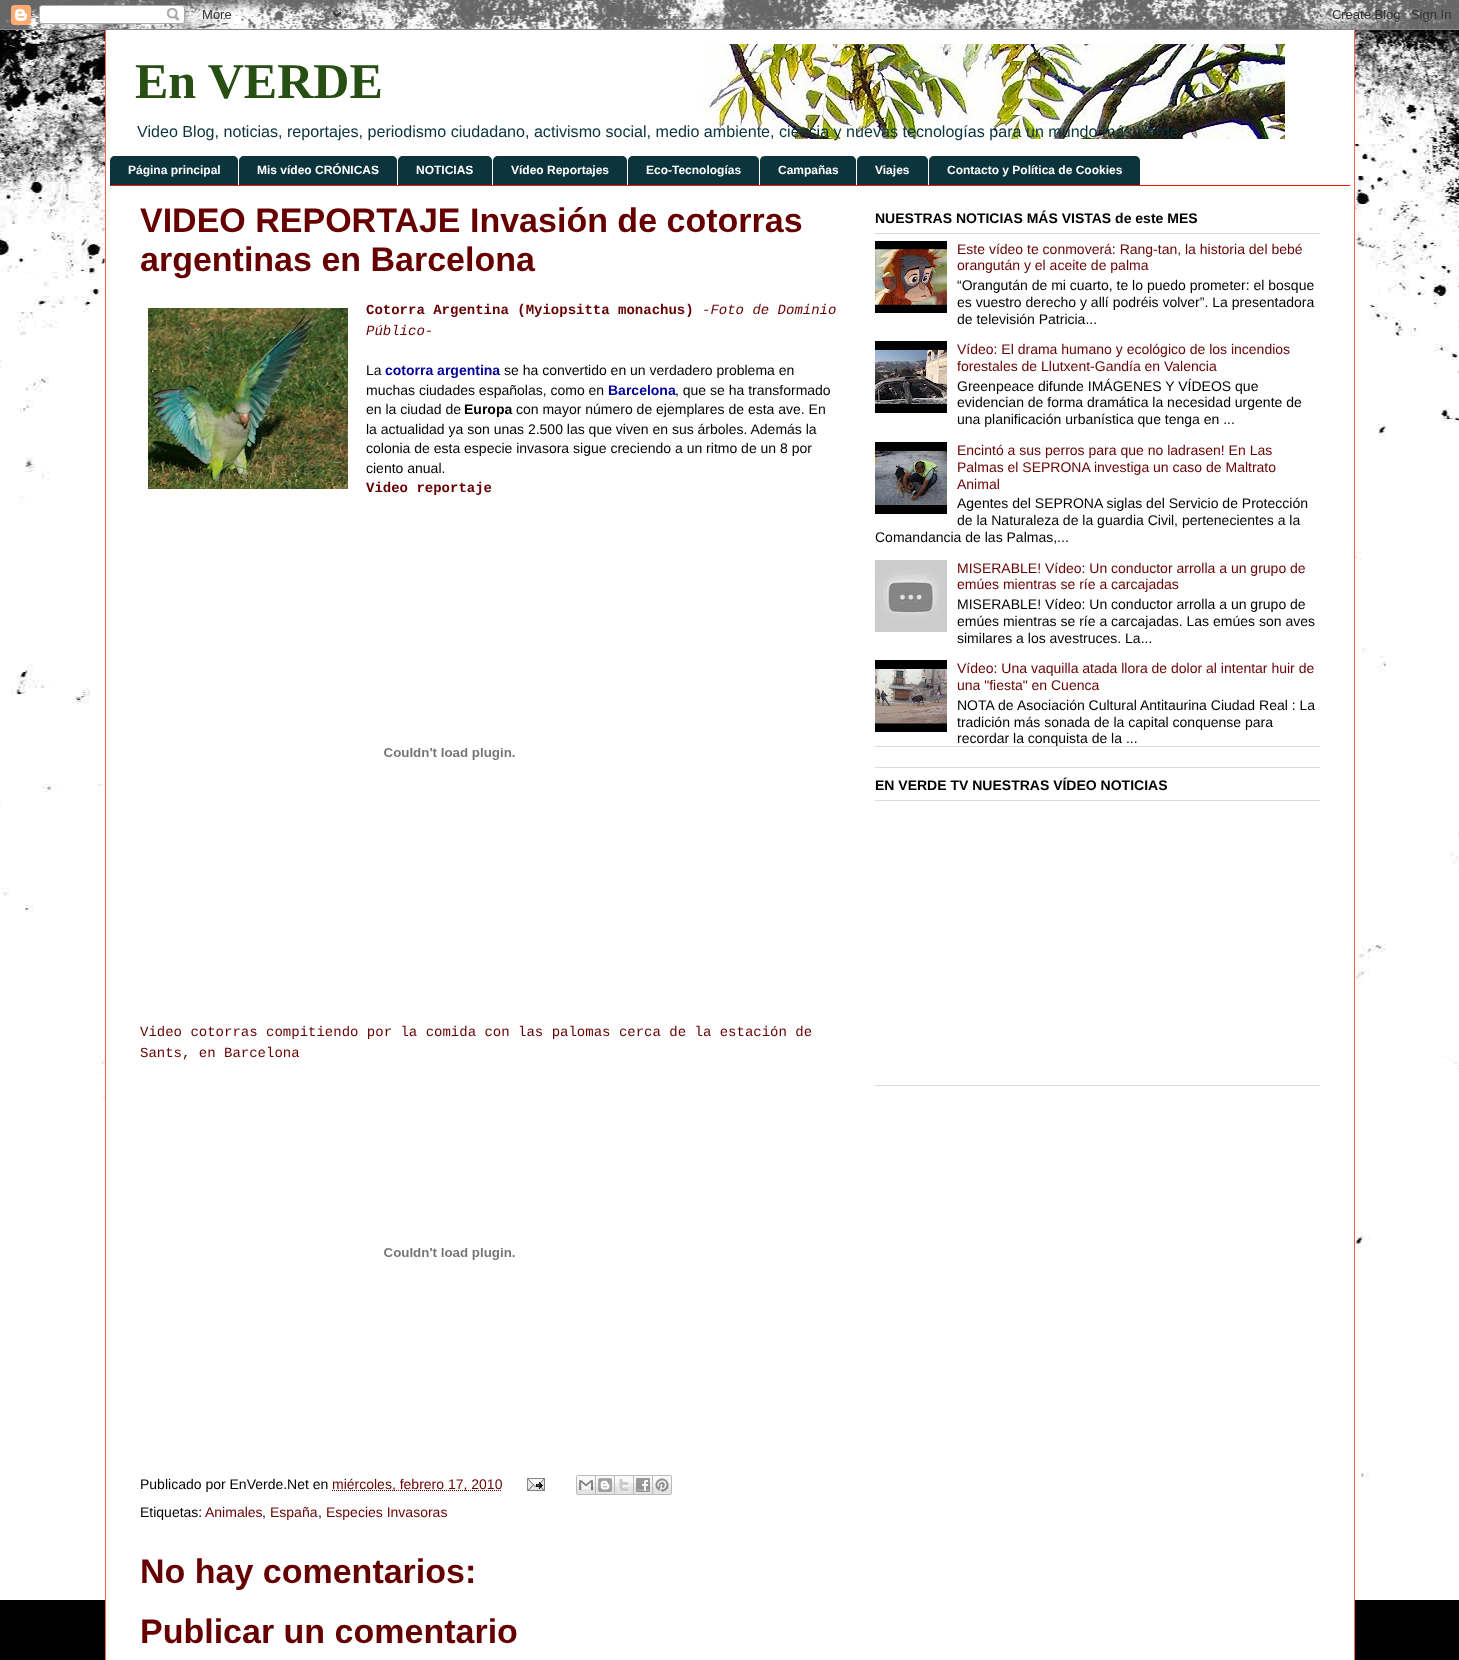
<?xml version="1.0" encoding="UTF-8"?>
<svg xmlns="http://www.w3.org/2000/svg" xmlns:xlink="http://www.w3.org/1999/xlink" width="1459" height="1660">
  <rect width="100%" height="100%" fill="#000000" />
  <image x="0" y="0" width="1459" height="1600" xlink:href="image1.png" />
  <image x="0" y="0" width="1459" height="30" xlink:href="image2.png" />
  <rect x="106" y="30" width="1248" height="1630" fill="#ffffff" />
  <rect x="1354" y="30" width="1" height="1630" fill="#fb5e53" />
  <rect x="105" y="30" width="1" height="1630" fill="#fb5e53" />
  <image x="703" y="44" width="582" height="95" xlink:href="image3.png" />
  <rect x="110" y="185" width="1240" height="1" fill="#fb1000" />
  <path d="M 115 156 h 118 c 3 0 5 2 5 5 v 24 h -128 v -24 c 0 -3 2 -5 5 -5 z" fill="#0c343d" />
  <path d="M 244 156 h 148 c 3 0 5 2 5 5 v 24 h -158 v -24 c 0 -3 2 -5 5 -5 z" fill="#0c343d" />
  <path d="M 403 156 h 84 c 3 0 5 2 5 5 v 24 h -94 v -24 c 0 -3 2 -5 5 -5 z" fill="#0c343d" />
  <path d="M 498 156 h 124 c 3 0 5 2 5 5 v 24 h -134 v -24 c 0 -3 2 -5 5 -5 z" fill="#0c343d" />
  <path d="M 633 156 h 121 c 3 0 5 2 5 5 v 24 h -131 v -24 c 0 -3 2 -5 5 -5 z" fill="#0c343d" />
  <path d="M 765 156 h 86 c 3 0 5 2 5 5 v 24 h -96 v -24 c 0 -3 2 -5 5 -5 z" fill="#0c343d" />
  <path d="M 862 156 h 61 c 3 0 5 2 5 5 v 24 h -71 v -24 c 0 -3 2 -5 5 -5 z" fill="#0c343d" />
  <path d="M 934 156 h 201 c 3 0 5 2 5 5 v 24 h -211 v -24 c 0 -3 2 -5 5 -5 z" fill="#0c343d" />
  <image x="148" y="308" width="200" height="181" xlink:href="image4.png" />
  <image x="384" y="748" width="131" height="12" xlink:href="image5.png" />
  <image x="384" y="1248" width="131" height="12" xlink:href="image5.png" />
  <path d="M 332 1490.5 h 170" fill="none" stroke="#660000" stroke-dasharray="1 1" />
  <image x="527" y="1478" width="18" height="13" xlink:href="image6.png" />
  <image x="576" y="1475" width="20" height="20" xlink:href="image7.png" />
  <image x="596" y="1475" width="19" height="20" xlink:href="image8.png" />
  <image x="615" y="1475" width="19" height="20" xlink:href="image9.png" />
  <image x="634" y="1475" width="19" height="20" xlink:href="image10.png" />
  <image x="653" y="1475" width="19" height="20" xlink:href="image11.png" />
  <rect x="875" y="746" width="445" height="1" fill="#dbdbdb" />
  <rect x="875" y="233" width="445" height="1" fill="#dbdbdb" />
  <image x="875" y="241" width="72" height="72" xlink:href="image12.png" />
  <image x="875" y="341" width="72" height="72" xlink:href="image13.png" />
  <image x="875" y="442" width="72" height="72" xlink:href="image14.png" />
  <image x="875" y="560" width="72" height="72" xlink:href="image15.png" />
  <image x="875" y="660" width="72" height="72" xlink:href="image16.png" />
  <rect x="875" y="767" width="445" height="1" fill="#dbdbdb" />
  <rect x="875" y="1085" width="445" height="1" fill="#dbdbdb" />
  <rect x="875" y="800" width="445" height="1" fill="#dbdbdb" />
  <text x="135" y="98" style="font-family: Liberation Serif; font-size: 50px; font-weight: bold; fill: #274e13">En VERDE</text>
  <text x="137" y="137" style="font-family: Liberation Sans; font-size: 16.1px; fill: #0c343d">Video Blog, noticias, reportajes, periodismo ciudadano, activismo social, medio ambiente, ciencia y nuevas tecnologías para un mundo más Verde</text>
  <text x="128" y="174" style="font-family: Liberation Sans; font-size: 12px; font-weight: bold; fill: #ffffff">Página principal</text>
  <text x="257" y="174" style="font-family: Liberation Sans; font-size: 12px; font-weight: bold; fill: #ffffff">Mis vídeo CRÓNICAS</text>
  <text x="416" y="174" style="font-family: Liberation Sans; font-size: 12px; font-weight: bold; fill: #ffffff">NOTICIAS</text>
  <text x="511" y="174" style="font-family: Liberation Sans; font-size: 12px; font-weight: bold; fill: #ffffff">Vídeo Reportajes</text>
  <text x="646" y="174" style="font-family: Liberation Sans; font-size: 12px; font-weight: bold; fill: #ffffff">Eco-Tecnologías</text>
  <text x="778" y="174" style="font-family: Liberation Sans; font-size: 12px; font-weight: bold; fill: #ffffff">Campañas</text>
  <text x="875" y="174" style="font-family: Liberation Sans; font-size: 12px; font-weight: bold; fill: #ffffff">Viajes</text>
  <text x="947" y="174" style="font-family: Liberation Sans; font-size: 12px; font-weight: bold; fill: #ffffff">Contacto y Política de Cookies</text>
  <text x="140" y="232" style="font-family: Liberation Sans; font-size: 34px; font-weight: bold; fill: #660000">VIDEO REPORTAJE Invasión de cotorras</text>
  <text x="140" y="271" style="font-family: Liberation Sans; font-size: 34px; font-weight: bold; fill: #660000">argentinas en Barcelona</text>
  <text x="366" y="314" style="font-family: Liberation Mono; font-size: 14px; font-weight: bold; fill: #660000">Cotorra Argentina (Myiopsitta monachus)</text>
  <text x="702" y="314" style="font-family: Liberation Mono; font-size: 14px; font-style: italic; fill: #660000">-Foto de Dominio</text>
  <text x="366" y="335" style="font-family: Liberation Mono; font-size: 14px; font-style: italic; fill: #660000">Público-</text>
  <text x="366" y="375" style="font-family: Liberation Sans; font-size: 14px; fill: #000000">La</text>
  <text x="385" y="375" style="font-family: Liberation Sans; font-size: 14px; font-weight: bold; fill: #000099">cotorra argentina</text>
  <text x="504" y="375" style="font-family: Liberation Sans; font-size: 14px; fill: #000000">se ha convertido en un verdadero problema en</text>
  <text x="366" y="395" style="font-family: Liberation Sans; font-size: 14px; fill: #000000">muchas ciudades españolas, como en</text>
  <text x="608" y="395" style="font-family: Liberation Sans; font-size: 14px; font-weight: bold; fill: #000099">Barcelona</text>
  <text x="675" y="395" style="font-family: Liberation Sans; font-size: 14px; fill: #000000">, que se ha transformado</text>
  <text x="366" y="414" style="font-family: Liberation Sans; font-size: 14px; fill: #000000">en la ciudad de</text>
  <text x="464" y="414" style="font-family: Liberation Sans; font-size: 14px; font-weight: bold; fill: #000000">Europa</text>
  <text x="516" y="414" style="font-family: Liberation Sans; font-size: 14px; fill: #000000">con mayor número de ejemplares de esta ave. En</text>
  <text x="366" y="434" style="font-family: Liberation Sans; font-size: 14px; fill: #000000">la actualidad ya son unas 2.500 las que viven en sus árboles. Además la</text>
  <text x="366" y="453" style="font-family: Liberation Sans; font-size: 14px; fill: #000000">colonia de esta especie invasora sigue creciendo a un ritmo de un 8 por</text>
  <text x="366" y="473" style="font-family: Liberation Sans; font-size: 14px; fill: #000000">ciento anual.</text>
  <text x="366" y="492" style="font-family: Liberation Mono; font-size: 14px; font-weight: bold; fill: #660000">Video reportaje</text>
  <text x="140" y="1036" style="font-family: Liberation Mono; font-size: 14px; fill: #660000">Video cotorras compitiendo por la comida con las palomas cerca de la estación de</text>
  <text x="140" y="1057" style="font-family: Liberation Mono; font-size: 14px; fill: #660000">Sants, en Barcelona</text>
  <text x="140" y="1489" style="font-family: Liberation Sans; font-size: 14px; fill: #000000">Publicado por EnVerde.Net en</text>
  <text x="332" y="1489" style="font-family: Liberation Sans; font-size: 14px; fill: #660000">miércoles, febrero 17, 2010</text>
  <text x="140" y="1517" style="font-family: Liberation Sans; font-size: 14px; fill: #000000">Etiquetas:</text>
  <text x="205" y="1517" style="font-family: Liberation Sans; font-size: 14px; fill: #660000">Animales</text>
  <text x="262" y="1517" style="font-family: Liberation Sans; font-size: 14px; fill: #000000">,</text>
  <text x="270" y="1517" style="font-family: Liberation Sans; font-size: 14px; fill: #660000">España</text>
  <text x="318" y="1517" style="font-family: Liberation Sans; font-size: 14px; fill: #000000">,</text>
  <text x="326" y="1517" style="font-family: Liberation Sans; font-size: 14px; fill: #660000">Especies Invasoras</text>
  <text x="140" y="1583" style="font-family: Liberation Sans; font-size: 34px; font-weight: bold; fill: #660000">No hay comentarios:</text>
  <text x="140" y="1643" style="font-family: Liberation Sans; font-size: 34px; font-weight: bold; fill: #660000">Publicar un comentario</text>
  <text x="875" y="223" style="font-family: Liberation Sans; font-size: 14px; font-weight: bold; fill: #000000">NUESTRAS NOTICIAS MÁS VISTAS de este MES</text>
  <text x="957" y="254" style="font-family: Liberation Sans; font-size: 14px; fill: #660000">Este vídeo te conmoverá: Rang-tan, la historia del bebé</text>
  <text x="957" y="270" style="font-family: Liberation Sans; font-size: 14px; fill: #660000">orangután y el aceite de palma</text>
  <text x="957" y="290" style="font-family: Liberation Sans; font-size: 14px; fill: #000000">“Orangután de mi cuarto, te lo puedo prometer: el bosque</text>
  <text x="957" y="307" style="font-family: Liberation Sans; font-size: 14px; fill: #000000">es vuestro derecho y allí podréis volver”. La presentadora</text>
  <text x="957" y="324" style="font-family: Liberation Sans; font-size: 14px; fill: #000000">de televisión Patricia...</text>
  <text x="957" y="354" style="font-family: Liberation Sans; font-size: 14px; fill: #660000">Vídeo: El drama humano y ecológico de los incendios</text>
  <text x="957" y="371" style="font-family: Liberation Sans; font-size: 14px; fill: #660000">forestales de Llutxent-Gandía en Valencia</text>
  <text x="957" y="391" style="font-family: Liberation Sans; font-size: 14px; fill: #000000">Greenpeace difunde IMÁGENES Y VÍDEOS que</text>
  <text x="957" y="407" style="font-family: Liberation Sans; font-size: 14px; fill: #000000">evidencian de forma dramática la necesidad urgente de</text>
  <text x="957" y="424" style="font-family: Liberation Sans; font-size: 14px; fill: #000000">una planificación urbanística que tenga en ...</text>
  <text x="957" y="455" style="font-family: Liberation Sans; font-size: 14px; fill: #660000">Encintó a sus perros para que no ladrasen! En Las</text>
  <text x="957" y="472" style="font-family: Liberation Sans; font-size: 14px; fill: #660000">Palmas el SEPRONA investiga un caso de Maltrato</text>
  <text x="957" y="489" style="font-family: Liberation Sans; font-size: 14px; fill: #660000">Animal</text>
  <text x="957" y="508" style="font-family: Liberation Sans; font-size: 14px; fill: #000000">Agentes del SEPRONA siglas del Servicio de Protección</text>
  <text x="957" y="525" style="font-family: Liberation Sans; font-size: 14px; fill: #000000">de la Naturaleza de la guardia Civil, pertenecientes a la</text>
  <text x="875" y="542" style="font-family: Liberation Sans; font-size: 14px; fill: #000000">Comandancia de las Palmas,...</text>
  <text x="957" y="573" style="font-family: Liberation Sans; font-size: 14px; fill: #660000">MISERABLE! Vídeo: Un conductor arrolla a un grupo de</text>
  <text x="957" y="589" style="font-family: Liberation Sans; font-size: 14px; fill: #660000">emúes mientras se ríe a carcajadas</text>
  <text x="957" y="609" style="font-family: Liberation Sans; font-size: 14px; fill: #000000">MISERABLE! Vídeo: Un conductor arrolla a un grupo de</text>
  <text x="957" y="626" style="font-family: Liberation Sans; font-size: 14px; fill: #000000">emúes mientras se ríe a carcajadas. Las emúes son aves</text>
  <text x="957" y="643" style="font-family: Liberation Sans; font-size: 14px; fill: #000000">similares a los avestruces. La...</text>
  <text x="957" y="673" style="font-family: Liberation Sans; font-size: 14px; fill: #660000">Vídeo: Una vaquilla atada llora de dolor al intentar huir de</text>
  <text x="957" y="690" style="font-family: Liberation Sans; font-size: 14px; fill: #660000">una "fiesta" en Cuenca</text>
  <text x="957" y="710" style="font-family: Liberation Sans; font-size: 14px; fill: #000000">NOTA de</text>
  <text x="1017" y="710" style="font-family: Liberation Sans; font-size: 14px; fill: #000000">Asociación Cultural Antitaurina Ciudad Real : La</text>
  <text x="957" y="727" style="font-family: Liberation Sans; font-size: 14px; fill: #000000">tradición más sonada de la capital conquense para</text>
  <text x="957" y="743" style="font-family: Liberation Sans; font-size: 14px; fill: #000000">recordar la conquista de la ...</text>
  <text x="875" y="790" style="font-family: Liberation Sans; font-size: 14px; font-weight: bold; fill: #000000">EN VERDE TV NUESTRAS VÍDEO NOTICIAS</text>
</svg>
